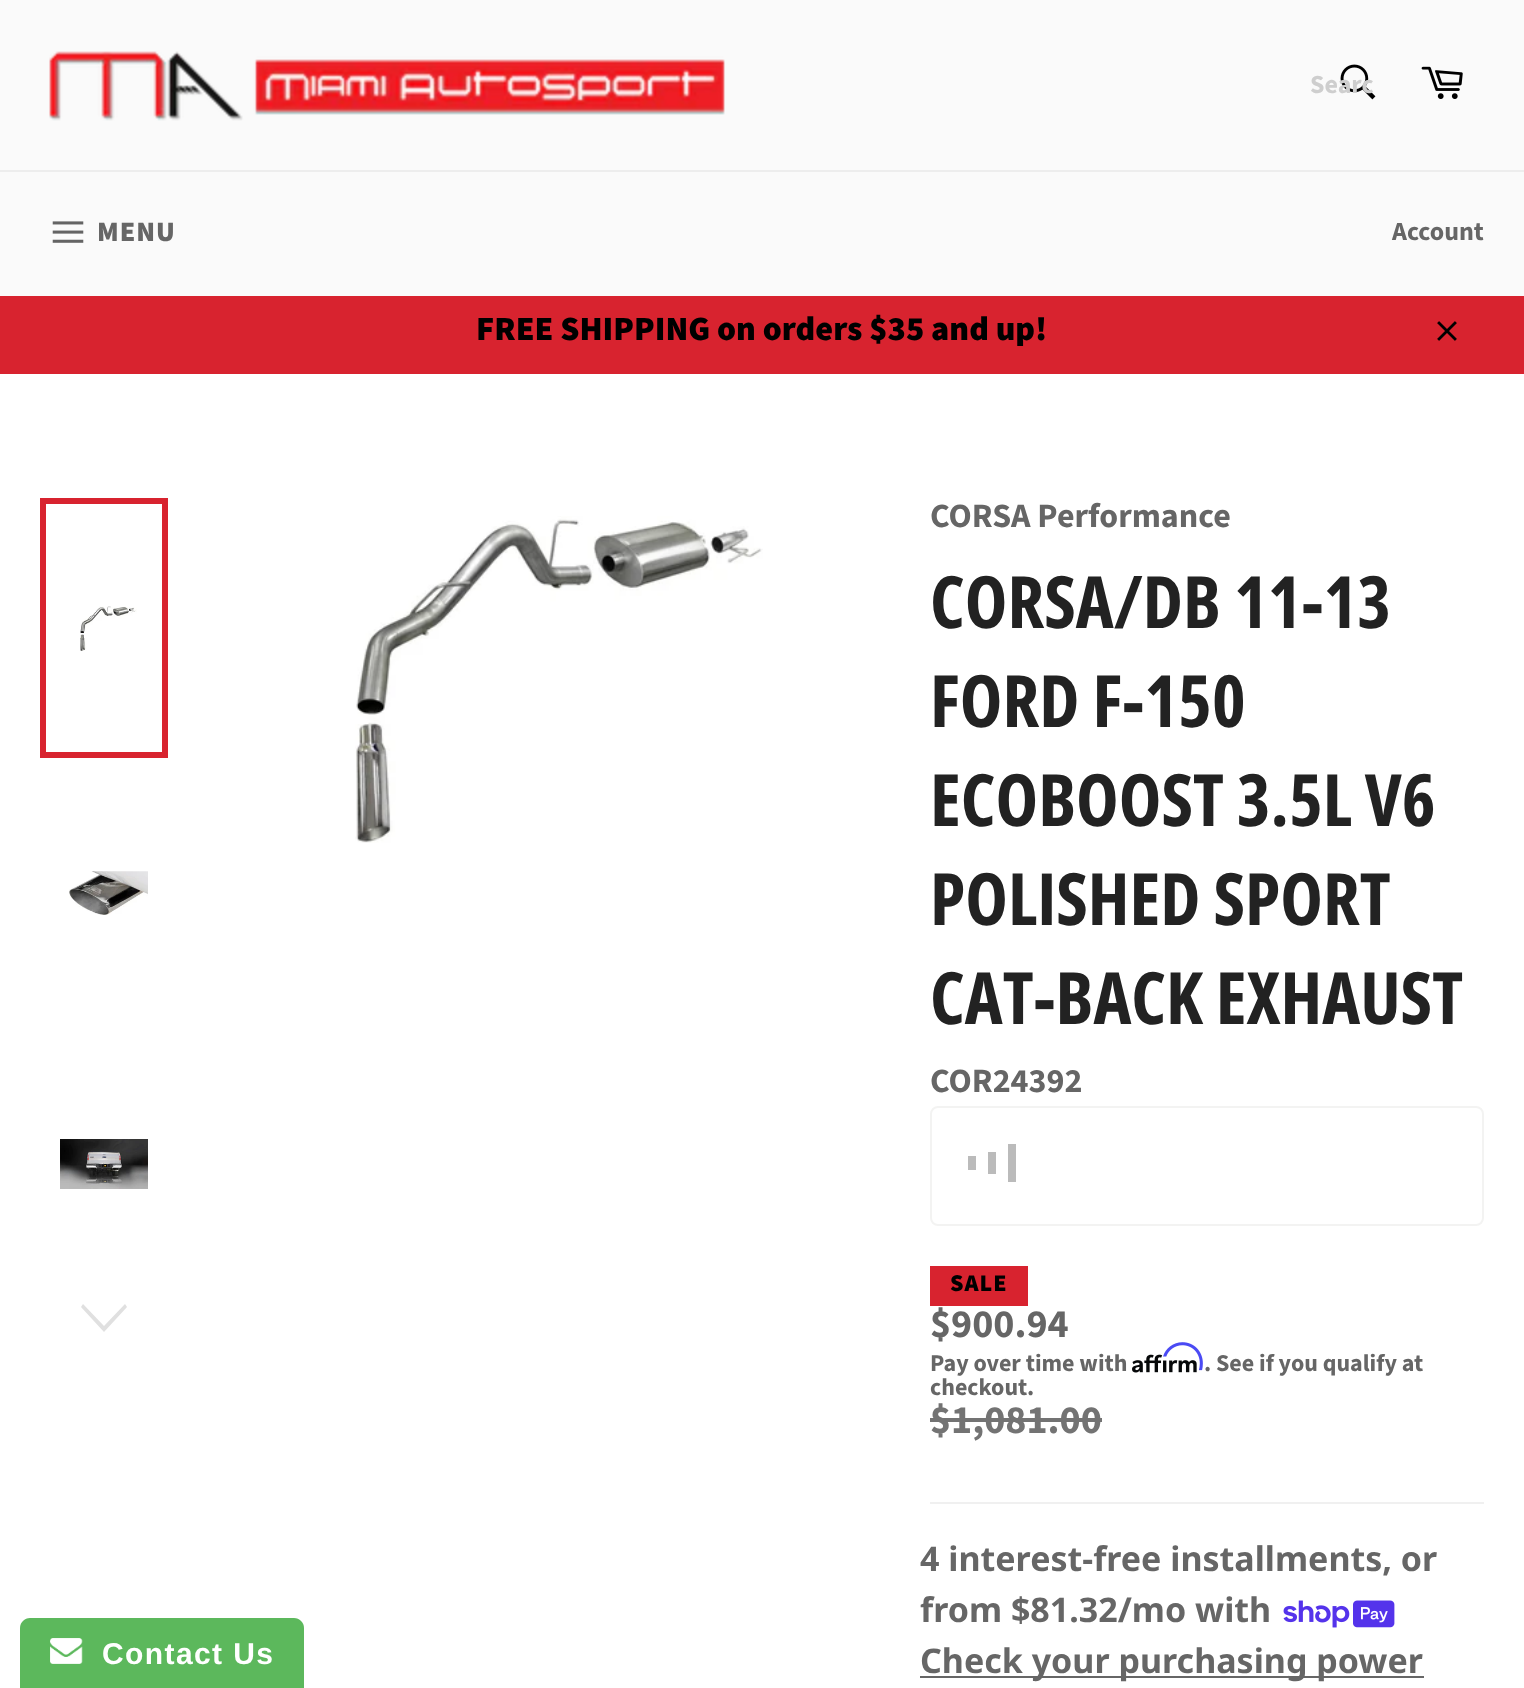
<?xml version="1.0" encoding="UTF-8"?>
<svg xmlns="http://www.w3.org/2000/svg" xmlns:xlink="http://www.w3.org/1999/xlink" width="1524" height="1688">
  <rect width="100%" height="100%" fill="#fafafa" />
  <image x="49" y="51" width="676" height="70" xlink:href="image1.png" />
  <image x="1340" y="64" width="36" height="36" xlink:href="image2.png" />
  <image x="1421" y="66" width="42" height="33" xlink:href="image3.png" />
  <rect y="170" width="1524" height="2" fill="#ededed" />
  <image x="52" y="221" width="32" height="22" xlink:href="image4.png" />
  <rect y="296" width="1524" height="78" fill="#d8232f" />
  <image x="1437" y="321" width="20" height="20" xlink:href="image5.png" />
  <rect y="374" width="1524" height="1314" fill="#ffffff" />
  <path d="M 30 1618 h 264 c 5.5 0 10 4.5 10 10 v 60 h -284 v -60 c 0 -5.5 4.5 -10 10 -10 z" fill="#5cb85c" />
  <image x="50" y="1638" width="33" height="26" xlink:href="image6.png" />
  <image x="80" y="606" width="57" height="45" xlink:href="image7.png" />
  <rect x="43" y="501" width="122" height="254" fill="none" stroke="#d8232f" stroke-width="6" />
  <image x="69" y="871" width="79" height="44" xlink:href="image8.png" />
  <image x="60" y="1139" width="88" height="50" xlink:href="image9.png" />
  <path d="M 125 1304 l 2 3 l -23 25 l -23 -25 l 2 -3 l 21 22 z" fill="#e0e0e0" />
  <image x="355" y="516" width="408" height="327" xlink:href="image10.png" />
  <rect x="931" y="1107" width="552" height="118" rx="7" fill="none" stroke="#f3f3f2" stroke-width="2" />
  <rect x="968" y="1156" width="8" height="14" fill="#bbbbbb" />
  <rect x="988" y="1152" width="8" height="22" fill="#bbbbbb" />
  <rect x="1008" y="1144" width="8" height="38" fill="#bbbbbb" />
  <rect x="930" y="1266" width="98" height="40" fill="#d8232f" />
  <image x="1132" y="1354" width="65" height="19" xlink:href="image12.png" />
  <image x="1163" y="1342" width="40" height="29" xlink:href="image11.png" />
  <rect x="930" y="1418" width="172" height="4" fill="#737373" />
  <rect x="930" y="1502" width="554" height="2" fill="#f0f0f0" />
  <image x="1283" y="1600" width="112" height="28" xlink:href="image13.png" />
  <rect x="920" y="1676" width="504" height="2" fill="#666666" />
  <text x="1310" y="93" style="font-family: Source Sans Pro; font-size: 26px; font-weight: bold; fill: #cecece">Searc</text>
  <text x="97" y="241" style="font-family: Source Sans Pro; font-size: 28px; font-weight: 900; letter-spacing: 1px; fill: #666666">MENU</text>
  <text x="1392" y="240" style="font-family: Source Sans Pro; font-size: 26px; font-weight: bold; fill: #666666">Account</text>
  <text x="476" y="340" style="font-family: Source Sans Pro; font-size: 34px; font-weight: 900; fill: #000000">FREE SHIPPING on orders $35 and up!</text>
  <text x="102" y="1664" style="font-family: Liberation Sans; font-size: 30px; font-weight: bold; letter-spacing: 1.4px; fill: #ffffff">Contact Us</text>
  <text x="930" y="527" style="font-family: Source Sans Pro; font-size: 34px; font-weight: bold; fill: #666666">CORSA Performance</text>
  <text x="930" y="628" style="font-family: Open Sans Condensed; font-size: 72px; font-weight: bold; fill: #222222">CORSA/DB 11-13</text>
  <text x="930" y="727" style="font-family: Open Sans Condensed; font-size: 72px; font-weight: bold; fill: #222222">FORD F-150</text>
  <text x="930" y="826" style="font-family: Open Sans Condensed; font-size: 72px; font-weight: bold; fill: #222222">ECOBOOST 3.5L V6</text>
  <text x="930" y="925" style="font-family: Open Sans Condensed; font-size: 72px; font-weight: bold; fill: #222222">POLISHED SPORT</text>
  <text x="930" y="1024" style="font-family: Open Sans Condensed; font-size: 72px; font-weight: bold; fill: #222222">CAT-BACK EXHAUST</text>
  <text x="930" y="1092" style="font-family: Source Sans Pro; font-size: 34px; font-weight: bold; fill: #666666">COR24392</text>
  <text x="950" y="1291" style="font-family: Source Sans Pro; font-size: 24px; font-weight: 900; letter-spacing: 1px; fill: #000000">SALE</text>
  <text x="930" y="1337" style="font-family: Source Sans Pro; font-size: 40px; font-weight: bold; fill: #666666">$900.94</text>
  <text x="930" y="1371" style="font-family: Source Sans Pro; font-size: 24px; font-weight: bold; fill: #666666">Pay over time with</text>
  <text x="1204" y="1371" style="font-family: Source Sans Pro; font-size: 24px; font-weight: bold; fill: #666666">. See if you qualify at</text>
  <text x="930" y="1395" style="font-family: Source Sans Pro; font-size: 24px; font-weight: bold; fill: #666666">checkout.</text>
  <text x="930" y="1433" style="font-family: Source Sans Pro; font-size: 40px; font-weight: bold; fill: #737373">$1,081.00</text>
  <text x="920" y="1571" style="font-family: Noto Sans; font-size: 34px; font-weight: bold; fill: #666666">4 interest-free installments, or</text>
  <text x="920" y="1622" style="font-family: Noto Sans; font-size: 34px; font-weight: bold; fill: #666666">from $81.32/mo with</text>
  <text x="920" y="1673" style="font-family: Noto Sans; font-size: 34px; font-weight: bold; fill: #666666">Check your purchasing power</text>
</svg>
